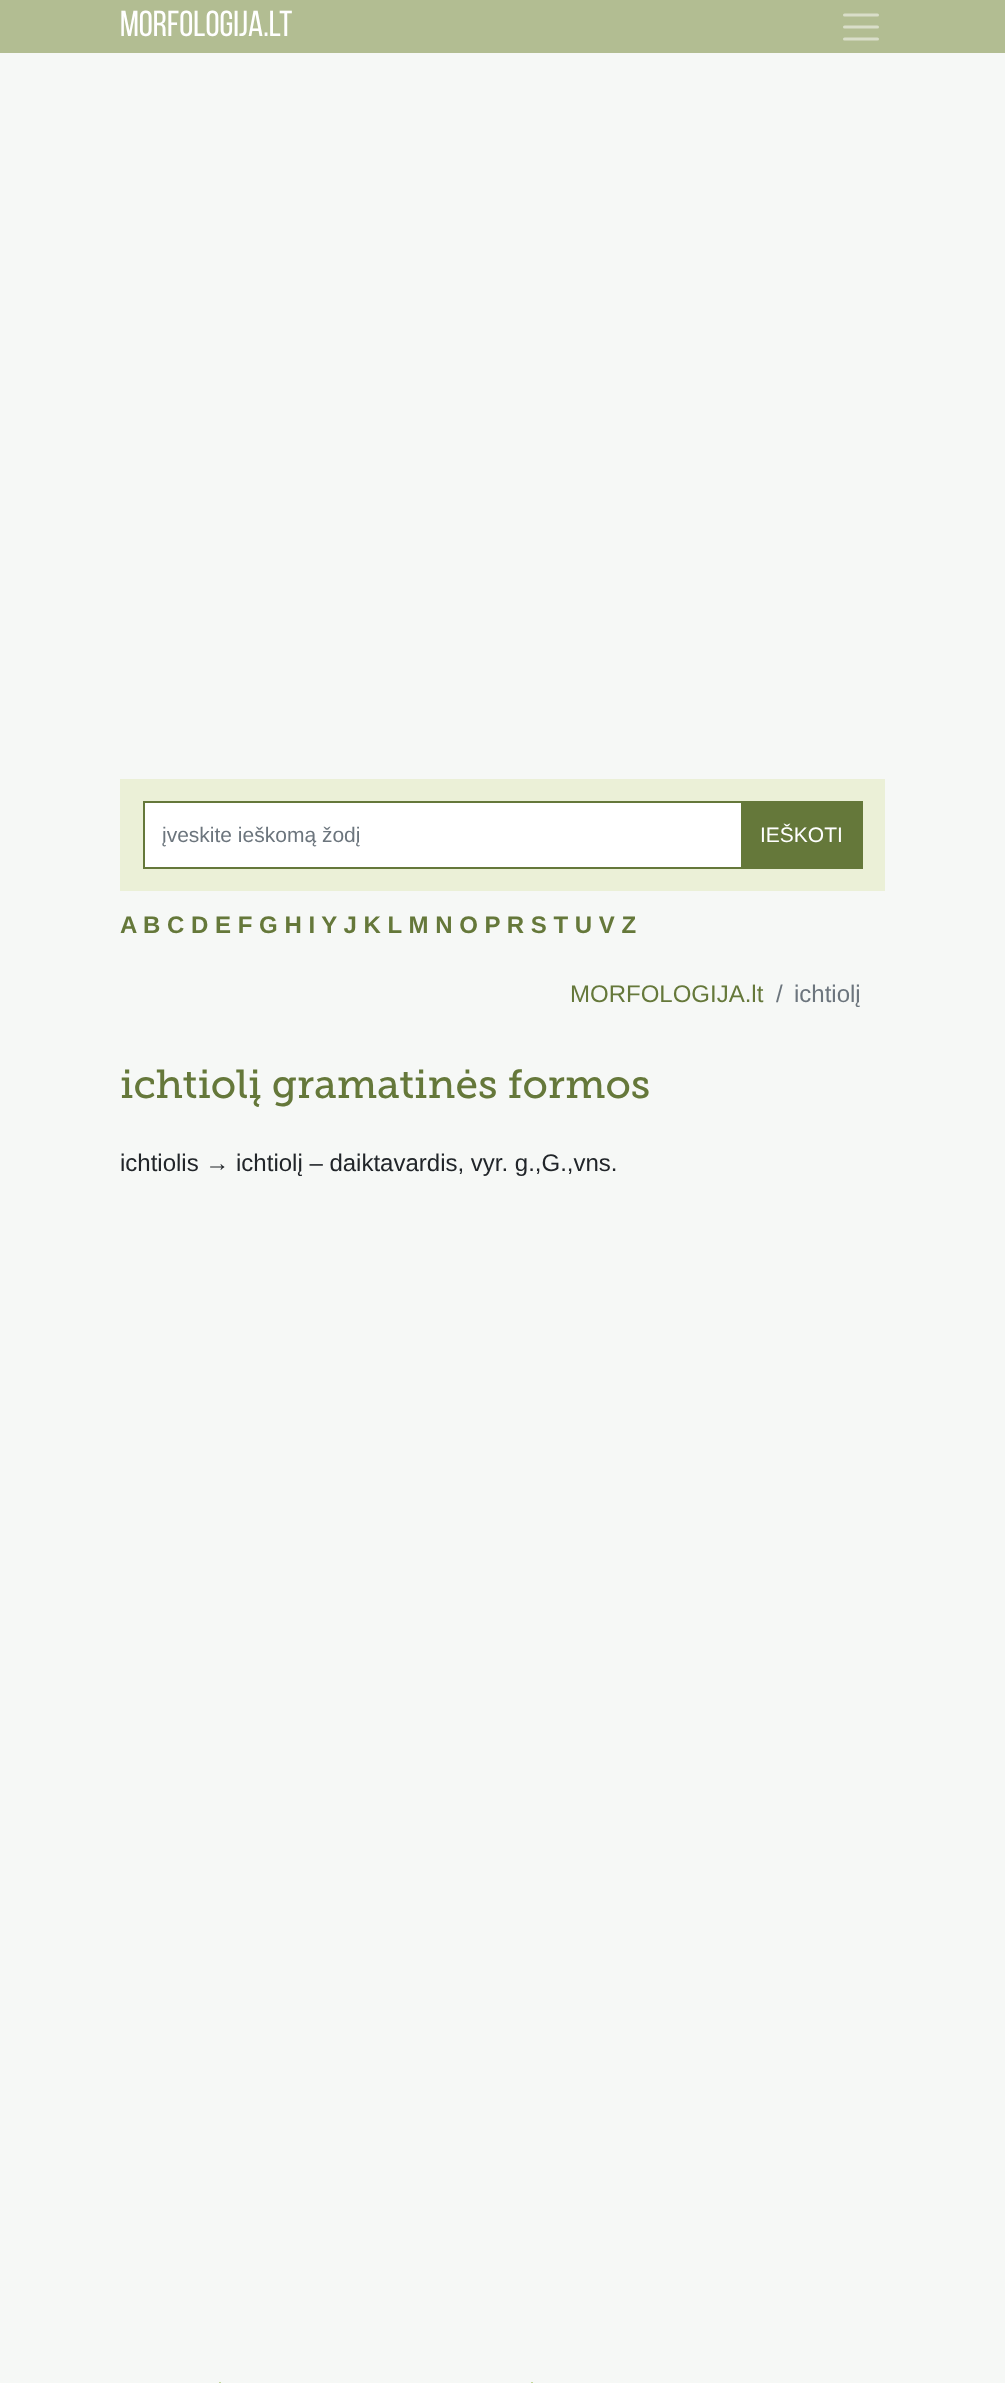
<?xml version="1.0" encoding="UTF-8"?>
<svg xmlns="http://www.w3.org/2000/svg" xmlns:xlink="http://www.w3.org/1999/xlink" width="1005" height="2383">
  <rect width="100%" height="100%" fill="#f6f8f6" />
  <rect width="1005" height="53" fill="#b2bd92" />
  <path d="M 844.5 15 h 33 m -33 12 h 33 m -33 12 h 33" fill="none" stroke="#d9dec9" stroke-width="3" stroke-linecap="round" />
  <rect x="120" y="779" width="765" height="112" fill="#ebf0d7" />
  <rect x="144" y="802" width="598" height="66" fill="#ffffff" stroke="#65783a" stroke-width="2" />
  <rect x="743" y="801" width="120" height="68" fill="#65783a" />
  <rect x="219" y="2382" width="2" height="1" fill="#c2d697" />
  <rect x="531" y="2382" width="2" height="1" fill="#c2d697" />
  <text x="120" y="36" style="font-family: Bebas Neue; font-size: 36px; fill: #ffffff">MORFOLOGIJA.LT</text>
  <text x="162" y="842" style="font-family: Liberation Sans; font-size: 21px; fill: #6c757d">įveskite ieškomą žodį</text>
  <text x="760" y="842" style="font-family: Liberation Sans; font-size: 21px; fill: #ffffff">IEŠKOTI</text>
  <text x="120" y="933" style="font-family: Liberation Sans; font-size: 24px; font-weight: bold; fill: #65783a">A B C D E F G H I Y J K L M N O P R S T U V Z</text>
  <text x="570" y="1002" style="font-family: Liberation Sans; font-size: 24px; fill: #65783a">MORFOLOGIJA.lt</text>
  <text x="776" y="1002" style="font-family: Liberation Sans; font-size: 24px; fill: #6c757d">/</text>
  <text x="794" y="1002" style="font-family: Liberation Sans; font-size: 24px; fill: #6c757d">ichtiolį</text>
  <text x="120" y="1098" style="font-family: Museo Slab; font-size: 40.5px; fill: #65783a">ichtiolį gramatinės formos</text>
  <text x="120" y="1171" style="font-family: Liberation Sans; font-size: 24px; fill: #212529">ichtiolis → ichtiolį – daiktavardis, vyr. g.,G.,vns.</text>
</svg>
